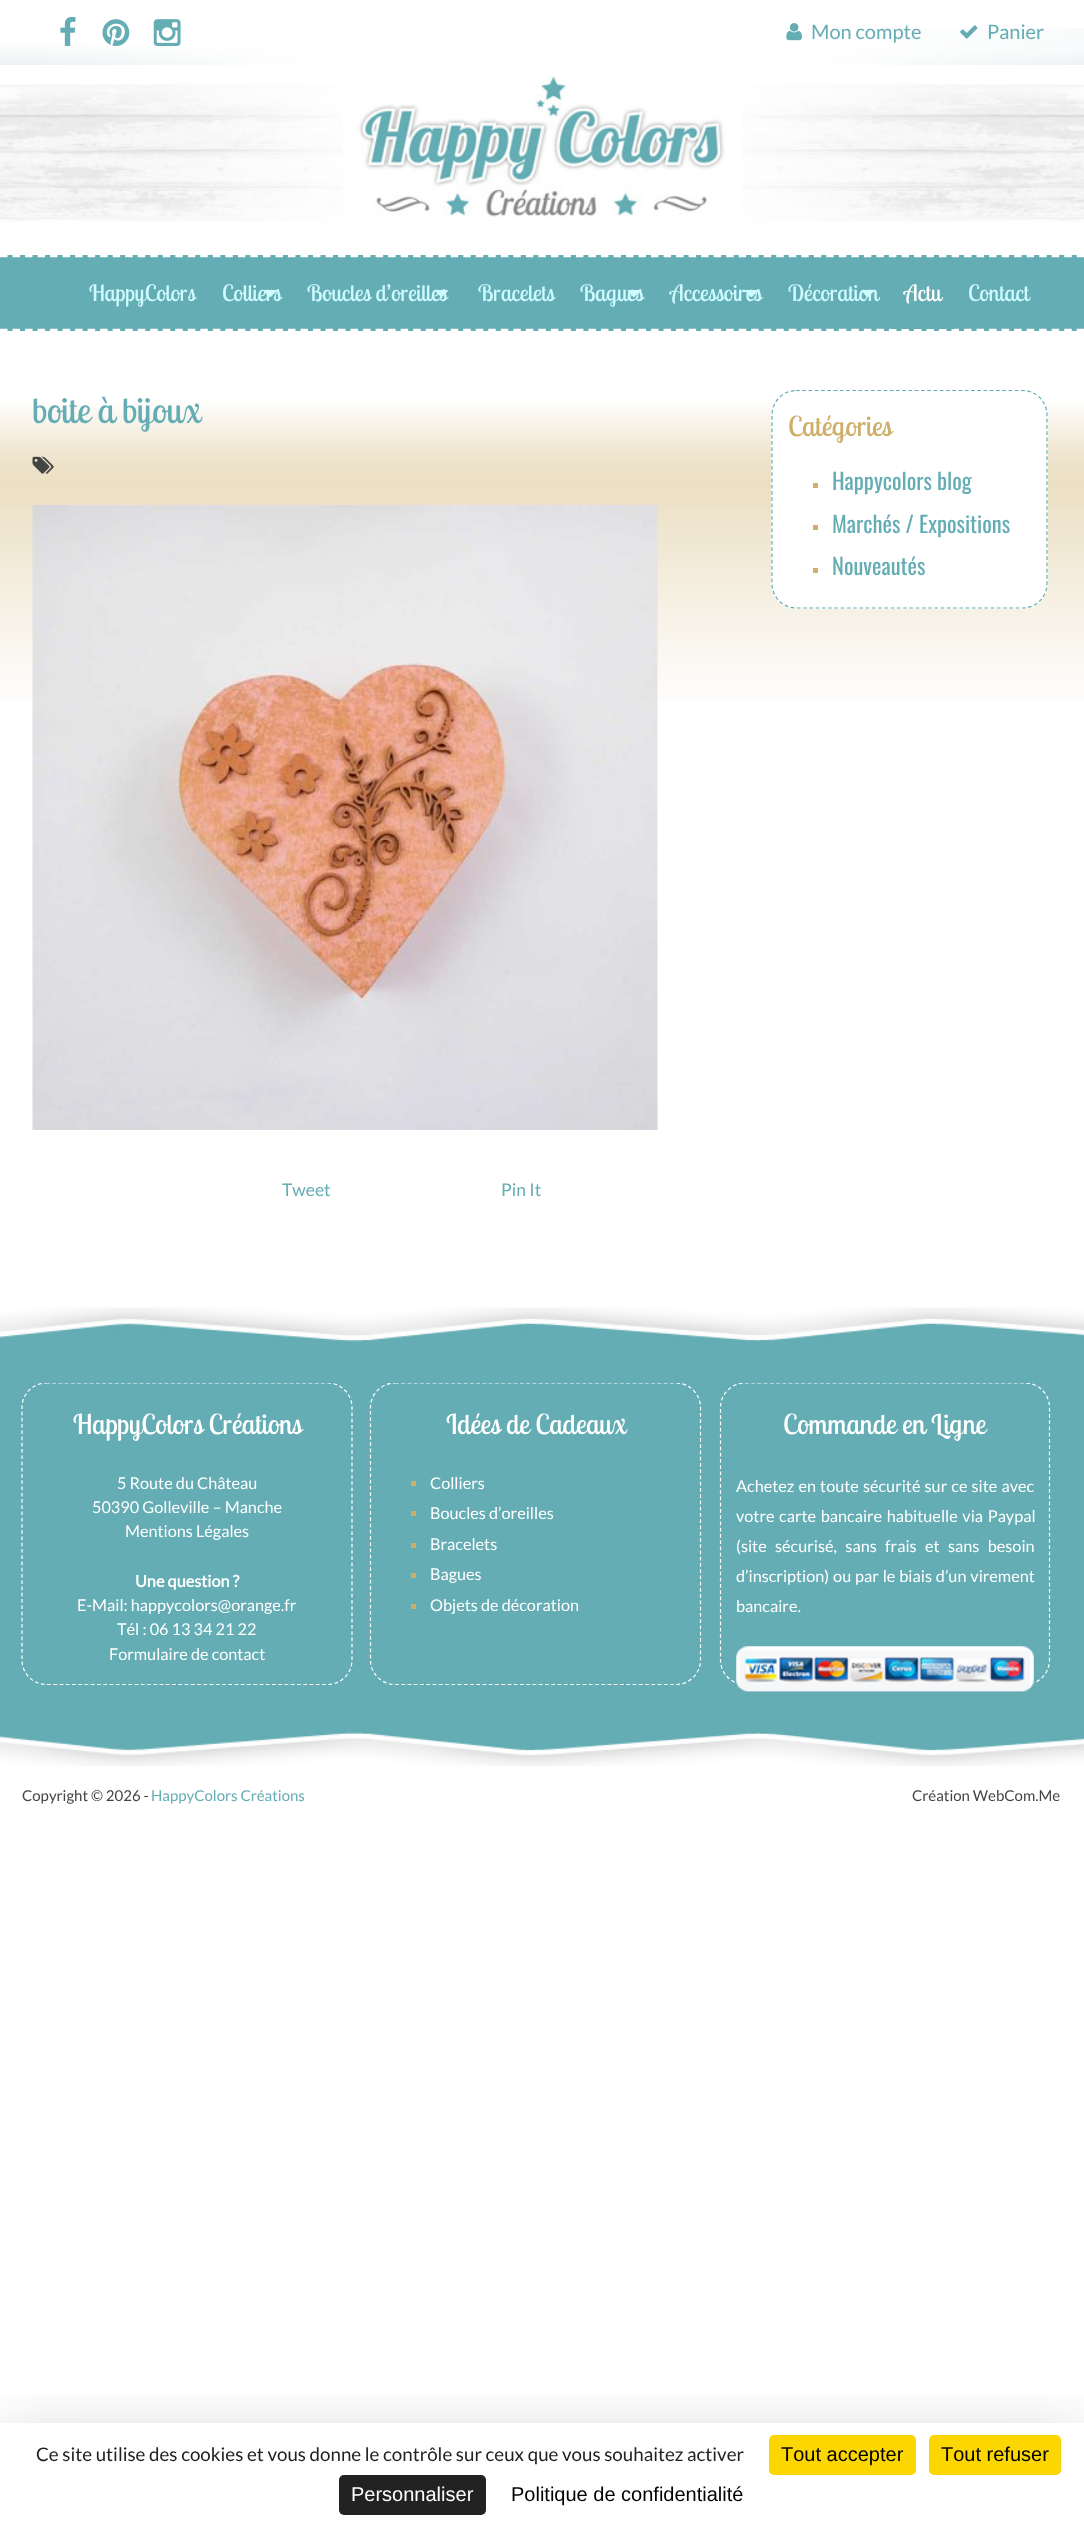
<?xml version="1.0" encoding="UTF-8"?>
<svg xmlns="http://www.w3.org/2000/svg" xmlns:xlink="http://www.w3.org/1999/xlink" width="1084" height="2527">
  <style>*{font-kerning:none!important;font-variant-ligatures:none!important}</style>
  <defs>
    <clipPath id="clip1"><rect y="1383" width="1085" height="340" /></clipPath>
    <clipPath id="clip2"><rect x="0" y="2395" width="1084" height="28" /></clipPath>
  </defs>
  <rect width="100%" height="100%" fill="#ffffff" />
  <image x="0" y="402" width="1084" height="300" xlink:href="image1.png" />
  <image x="0" y="28" width="1084" height="37" xlink:href="image2.png" />
  <image x="60" y="17" width="16" height="29" xlink:href="image3.png" />
  <image x="102" y="19" width="28" height="27" xlink:href="image4.png" />
  <image x="153" y="19" width="28" height="27" xlink:href="image5.png" />
  <image x="786" y="23" width="16" height="18" xlink:href="image6.png" />
  <image x="960" y="25" width="18" height="14" xlink:href="image7.png" />
  <image x="0" y="84" width="1084" height="138" xlink:href="image8.png" />
  <image x="343" y="75" width="399" height="142" xlink:href="image9.png" />
  <rect y="255" width="1084" height="76" fill="#64adb4" />
  <path d="M 0 256 h 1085" fill="none" stroke="#ffffff" stroke-width="2.5" stroke-dasharray="7.5 5.02" />
  <path d="M 0 330 h 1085" fill="none" stroke="#ffffff" stroke-width="2.5" stroke-dasharray="7.5 5.02" />
  <rect x="891" y="328" width="64" height="1" fill="#64adb4" />
  <image x="32" y="456" width="22" height="18" xlink:href="image15.png" />
  <image x="32" y="505" width="626" height="625" xlink:href="image16.png" />
  <rect x="771" y="390" width="277" height="219" rx="25" fill="#ffffff" />
  <path d="M 796 390.5 h 226.5 c 13.5 0 24.5 11 24.5 24.5 v 169 c 0 13 -11 24 -24.5 24 h -226.5 c -13 0 -24 -11 -24 -24 v -169 c 0 -13.5 11 -24.5 24 -24.5 z" fill="none" stroke="#64adb4" stroke-width="1.2" stroke-dasharray="3.75 2.5" />
  <rect x="813" y="483" width="5" height="5" fill="#cdaf69" />
  <rect x="813" y="525" width="5" height="5" fill="#cdaf69" />
  <rect x="813" y="568" width="5" height="5" fill="#cdaf69" />
  <rect y="1342" width="1084" height="381" fill="#64adb4" />
  <image x="0" y="1307" width="1084" height="35" xlink:href="image17.png" />
  <g clip-path="url(#clip1)">
    <path d="M 46 1383 h 281.5 c 13.5 0 24.5 11 24.5 24.5 v 252.5 c 0 13.5 -11 24.5 -24.5 24.5 h -281.5 c -13 0 -24 -11 -24 -24.5 v -252.5 c 0 -13.5 11 -24.5 24 -24.5 z" fill="none" stroke="#ffffff" stroke-width="1.2" stroke-dasharray="3.75 2.5" />
    <path d="M 395 1383 h 281 c 13.5 0 24.5 11 24.5 24.5 v 252.5 c 0 13.5 -11 24.5 -24.5 24.5 h -281 c -13.5 0 -24.5 -11 -24.5 -24.5 v -252.5 c 0 -13.5 11 -24.5 24.5 -24.5 z" fill="none" stroke="#ffffff" stroke-width="1.2" stroke-dasharray="3.75 2.5" />
  </g>
  <rect x="411" y="1481" width="5" height="5" fill="#cdaf69" />
  <rect x="411" y="1511" width="5" height="5" fill="#cdaf69" />
  <rect x="411" y="1543" width="5" height="5" fill="#cdaf69" />
  <rect x="411" y="1573" width="5" height="5" fill="#cdaf69" />
  <rect x="411" y="1604" width="5" height="5" fill="#cdaf69" />
  <g clip-path="url(#clip1)">
    <path d="M 745 1383 h 280 c 13.5 0 24.5 11 24.5 24.5 v 252.5 c 0 13.5 -11 24.5 -24.5 24.5 h -280 c -13.5 0 -24.5 -11 -24.5 -24.5 v -252.5 c 0 -13.5 11 -24.5 24.5 -24.5 z" fill="none" stroke="#ffffff" stroke-width="1.2" stroke-dasharray="3.75 2.5" />
  </g>
  <image x="736" y="1646" width="298" height="46" xlink:href="image18.png" />
  <image x="0" y="1723" width="1084" height="43" xlink:href="image19.png" />
  <g clip-path="url(#clip2)">
    <rect y="2448" width="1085" height="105" fill="#000000" fill-opacity="0.25" filter="blur(37.5px)" />
  </g>
  <rect x="769" y="2435" width="147" height="40" rx="5" fill="#fbd600" />
  <rect x="929" y="2435" width="132" height="40" rx="5" fill="#fbd600" />
  <rect x="339" y="2475" width="147" height="40" rx="5" fill="#222222" />
  <text x="811" y="39" style="font-family: Lato; font-size: 20px; fill: #64adb4">Mon compte</text>
  <text x="987" y="39" style="font-family: Lato; font-size: 20px; fill: #64adb4">Panier</text>
  <text x="89" y="301" style="font-family: Lobster Two; font-size: 22.5px; fill: #cdfbff">HappyColors</text>
  <text x="222" y="301" style="font-family: Lobster Two; font-size: 22.5px; fill: #cdfbff">Colliers</text>
  <image x="264" y="290" width="12" height="8" xlink:href="image10.png" />
  <text x="307" y="301" style="font-family: Lobster Two; font-size: 22.5px; fill: #cdfbff">Boucles d’oreilles</text>
  <image x="435" y="290" width="13" height="7" xlink:href="image11.png" />
  <text x="478" y="301" style="font-family: Lobster Two; font-size: 22.5px; fill: #cdfbff">Bracelets</text>
  <text x="580" y="301" style="font-family: Lobster Two; font-size: 22.5px; fill: #cdfbff">Bagues</text>
  <image x="627" y="290" width="13" height="8" xlink:href="image12.png" />
  <text x="670" y="301" style="font-family: Lobster Two; font-size: 22.5px; fill: #cdfbff">Accessoires</text>
  <image x="745" y="290" width="12" height="8" xlink:href="image13.png" />
  <text x="788" y="301" style="font-family: Lobster Two; font-size: 22.5px; fill: #cdfbff">Décoration</text>
  <image x="862" y="290" width="12" height="8" xlink:href="image14.png" />
  <text x="904" y="301" style="font-family: Lobster Two; font-size: 22.5px; fill: #ffffff">Actu</text>
  <text x="968" y="301" style="font-family: Lobster Two; font-size: 22.5px; fill: #cdfbff">Contact</text>
  <text x="32" y="423" style="font-family: Lobster Two; font-size: 35px; fill: #64adb4">boite à bijoux</text>
  <text x="282" y="1196" style="font-family: Lato; font-size: 17.5px; fill: #64adb4">Tweet</text>
  <text x="501" y="1196" style="font-family: Lato; font-size: 17.5px; fill: #64adb4">Pin It</text>
  <text x="788" y="436" style="font-family: Lobster Two; font-size: 27.5px; fill: #cdaf69">Catégories</text>
  <text x="832" y="490" style="font-family: Oswald; font-size: 22.5px; fill: #64adb4">Happycolors blog</text>
  <text x="832" y="533" style="font-family: Oswald; font-size: 22.5px; fill: #64adb4">Marchés / Expositions</text>
  <text x="832" y="575" style="font-family: Oswald; font-size: 22.5px; fill: #64adb4">Nouveautés</text>
  <text x="73" y="1434" style="font-family: Lobster Two; font-size: 27.5px; fill: #ffffff">HappyColors Créations</text>
  <text x="117" y="1489" style="font-family: Lato; font-size: 16.25px; fill: #ffffff">5 Route du Château</text>
  <text x="92" y="1513" style="font-family: Lato; font-size: 16.25px; fill: #ffffff">50390 Golleville – Manche</text>
  <text x="125" y="1537" style="font-family: Lato; font-size: 16.25px; fill: #ffffff">Mentions Légales</text>
  <text x="135" y="1587" style="font-family: Lato; font-size: 16.25px; font-weight: bold; fill: #ffffff">Une question ?</text>
  <text x="77" y="1611" style="font-family: Lato; font-size: 16.25px; fill: #ffffff">E-Mail: happycolors@orange.fr</text>
  <text x="117" y="1635" style="font-family: Lato; font-size: 16.25px; fill: #ffffff">Tél : 06 13 34 21 22</text>
  <text x="109" y="1660" style="font-family: Lato; font-size: 16.25px; fill: #ffffff">Formulaire de contact</text>
  <text x="446" y="1434" style="font-family: Lobster Two; font-size: 27.5px; fill: #ffffff">Idées de Cadeaux</text>
  <text x="430" y="1489" style="font-family: Lato; font-size: 16.25px; fill: #ffffff">Colliers</text>
  <text x="430" y="1519" style="font-family: Lato; font-size: 16.25px; fill: #ffffff">Boucles d’oreilles</text>
  <text x="430" y="1550" style="font-family: Lato; font-size: 16.25px; fill: #ffffff">Bracelets</text>
  <text x="430" y="1580" style="font-family: Lato; font-size: 16.25px; fill: #ffffff">Bagues</text>
  <text x="430" y="1611" style="font-family: Lato; font-size: 16.25px; fill: #ffffff">Objets de décoration</text>
  <text x="783" y="1434" style="font-family: Lobster Two; font-size: 27.5px; fill: #ffffff">Commande en Ligne</text>
  <text x="736" y="1492" word-spacing="1" style="font-family: Lato; font-size: 16.25px; fill: #ffffff">Achetez en toute sécurité sur ce site avec</text>
  <text x="736" y="1522" word-spacing="1.5" style="font-family: Lato; font-size: 16.25px; fill: #ffffff">votre carte bancaire habituelle via Paypal</text>
  <text x="736" y="1552" word-spacing="5.25" style="font-family: Lato; font-size: 16.25px; fill: #ffffff">(site sécurisé, sans frais et sans besoin</text>
  <text x="736" y="1582" word-spacing="0.75" style="font-family: Lato; font-size: 16.25px; fill: #ffffff">d’inscription) ou par le biais d’un virement</text>
  <text x="736" y="1612" style="font-family: Lato; font-size: 16.25px; fill: #ffffff">bancaire.</text>
  <text x="22" y="1801" style="font-family: Lato; font-size: 15px; fill: #444444">Copyright © 2026 -</text>
  <text x="151" y="1801" style="font-family: Lato; font-size: 15px; fill: #64adb4">HappyColors Créations</text>
  <text x="912" y="1801" style="font-family: Lato; font-size: 15px; fill: #444444">Création WebCom.Me</text>
  <text x="36" y="2461" style="font-family: Lato; font-size: 18.75px; fill: #222222">Ce site utilise des cookies et vous donne le contrôle sur ceux que vous souhaitez activer</text>
  <text x="781" y="2461" style="font-family: Liberation Sans; font-size: 20px; fill: #000000">Tout accepter</text>
  <text x="941" y="2461" style="font-family: Liberation Sans; font-size: 20px; fill: #000000">Tout refuser</text>
  <text x="351" y="2501" style="font-family: Liberation Sans; font-size: 20px; fill: #ffffff">Personnaliser</text>
  <text x="511" y="2501" style="font-family: Liberation Sans; font-size: 20px; fill: #000000">Politique de confidentialité</text>
</svg>
